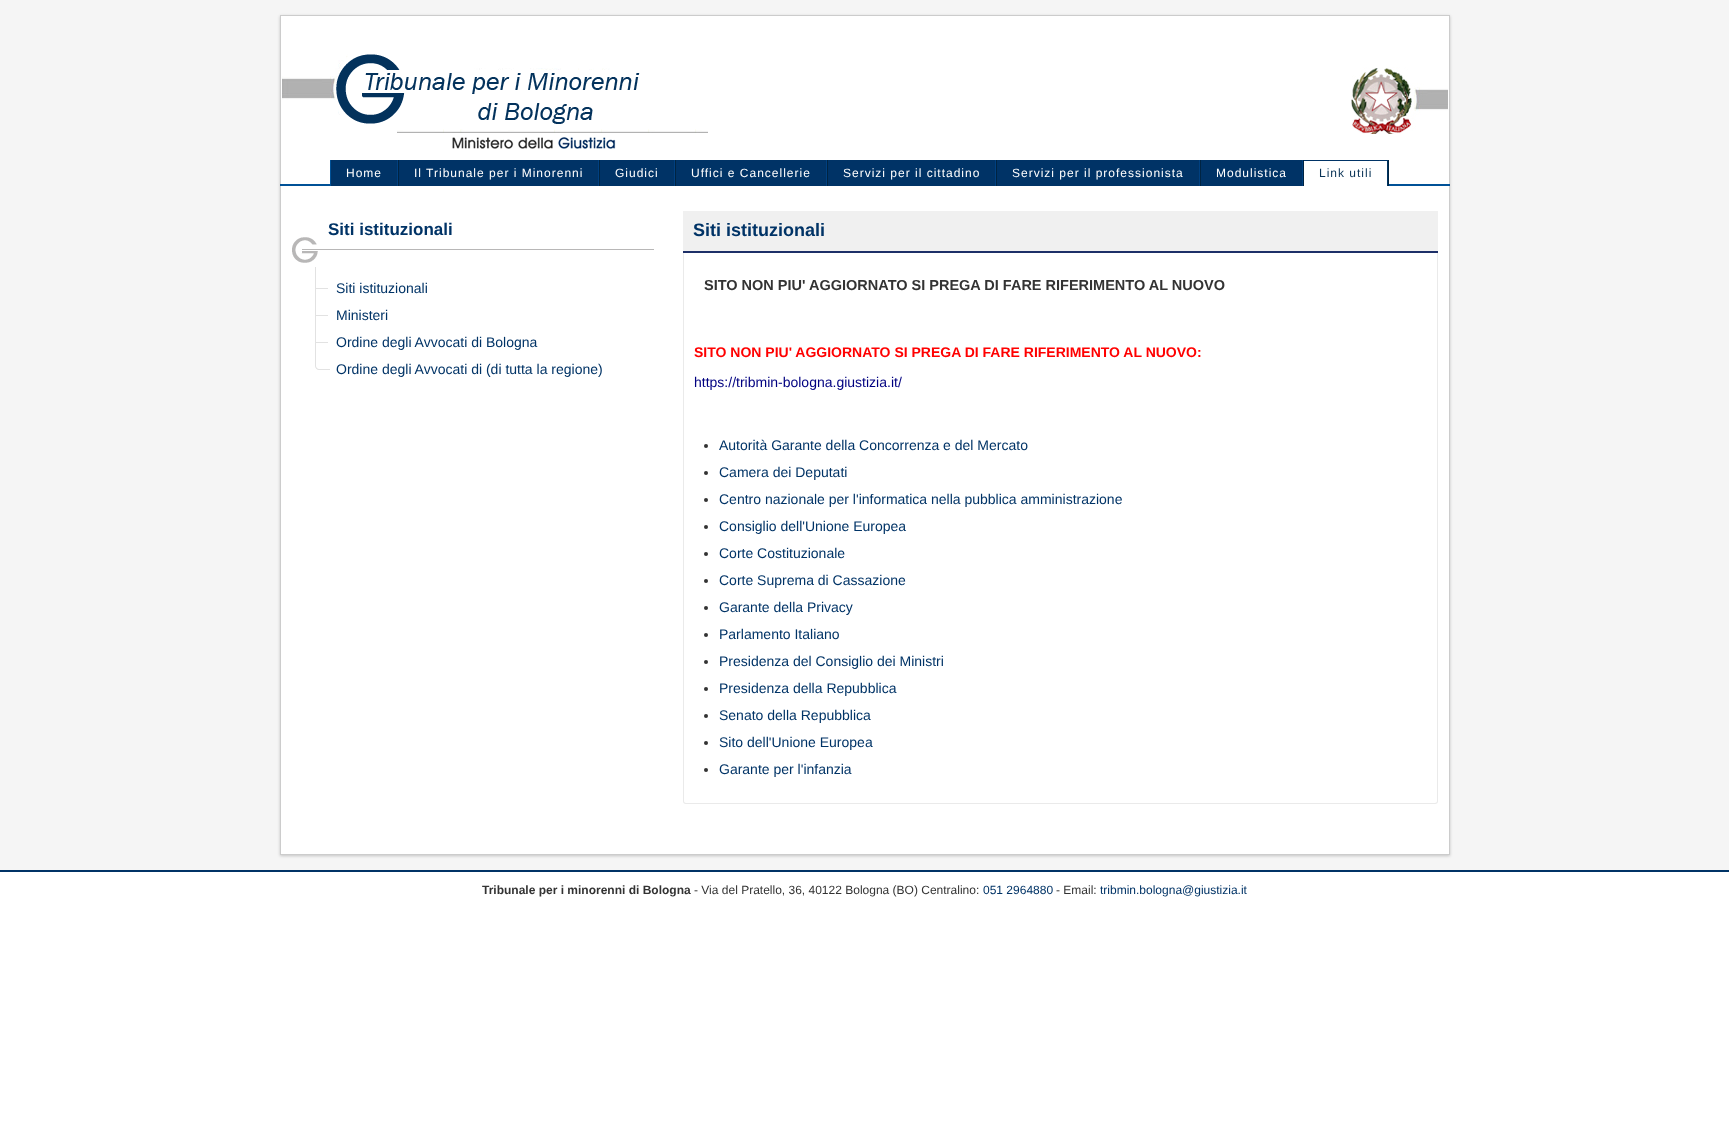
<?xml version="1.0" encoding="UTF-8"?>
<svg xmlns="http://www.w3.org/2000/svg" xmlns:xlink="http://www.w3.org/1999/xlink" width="1729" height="1146">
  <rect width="100%" height="100%" fill="#ffffff" />
  <rect width="1729" height="870" fill="#f5f5f5" />
  <rect x="280" y="16" width="1170" height="840" fill="#000000" fill-opacity="0.2" filter="blur(1.5px)" />
  <rect x="280.5" y="15.5" width="1169" height="839" fill="#ffffff" stroke="#cccccc" />
  <rect x="280" y="184" width="1170" height="2" fill="#005197" />
  <image x="282" y="54" width="426" height="95" xlink:href="image1.png" />
  <image x="1351" y="67" width="97" height="67" xlink:href="image2.png" />
  <rect x="398" y="160" width="1" height="26" fill="#002442" />
  <rect x="330" y="160" width="1" height="26" fill="#005197" />
  <rect x="331" y="160" width="66" height="26" fill="#003366" />
  <rect x="397" y="160" width="1" height="26" fill="#004080" />
  <rect x="599" y="160" width="1" height="26" fill="#002442" />
  <rect x="399" y="160" width="199" height="26" fill="#003366" />
  <rect x="598" y="160" width="1" height="26" fill="#004080" />
  <rect x="675" y="160" width="1" height="26" fill="#002442" />
  <rect x="600" y="160" width="74" height="26" fill="#003366" />
  <rect x="674" y="160" width="1" height="26" fill="#004080" />
  <rect x="827" y="160" width="1" height="26" fill="#002442" />
  <rect x="676" y="160" width="150" height="26" fill="#003366" />
  <rect x="826" y="160" width="1" height="26" fill="#004080" />
  <rect x="996" y="160" width="1" height="26" fill="#002442" />
  <rect x="828" y="160" width="167" height="26" fill="#003366" />
  <rect x="995" y="160" width="1" height="26" fill="#004080" />
  <rect x="1200" y="160" width="1" height="26" fill="#002442" />
  <rect x="997" y="160" width="202" height="26" fill="#003366" />
  <rect x="1199" y="160" width="1" height="26" fill="#004080" />
  <rect x="1303" y="160" width="1" height="26" fill="#002442" />
  <rect x="1201" y="160" width="101" height="26" fill="#003366" />
  <rect x="1302" y="160" width="1" height="26" fill="#004080" />
  <rect x="1388" y="160" width="1" height="26" fill="#002442" />
  <rect x="1304" y="184" width="83" height="2" fill="#ffffff" />
  <rect x="1304" y="160" width="84" height="1" fill="#003366" />
  <rect x="1387" y="160" width="1" height="26" fill="#003461" />
  <image x="292" y="237" width="362" height="26" xlink:href="image3.png" />
  <rect x="315" y="289" width="1" height="67" fill="#e2e2e2" />
  <rect x="315" y="288" width="13" height="1" fill="#e2e2e2" />
  <rect x="315" y="267" width="1" height="22" fill="#e2e2e2" />
  <rect x="315" y="315" width="13" height="1" fill="#e2e2e2" />
  <rect x="315" y="342" width="13" height="1" fill="#e2e2e2" />
  <path d="M 315 348 h 15 v 22 h -11 c -2 0 -4 -2 -4 -4 z m 1 0 h 14 v 21 h -11 c -1.5 0 -3 -1.5 -3 -3 z" fill="#e2e2e2" fill-rule="evenodd" />
  <rect x="683" y="211" width="755" height="40" fill="#f0f0f0" />
  <rect x="683" y="251" width="755" height="2" fill="#1d2f68" />
  <path d="M 683 253 h 755 v 548 c 0 2 -1 3 -3 3 h -749 c -2 0 -3 -1 -3 -3 z m 1 0 h 753 v 548 c 0 1 -1 2 -2 2 h -749 c -1 0 -2 -1 -2 -2 z" fill="#eaeaea" fill-rule="evenodd" />
  <circle cx="706" cy="446" r="2" fill="#333333" />
  <circle cx="706" cy="473" r="2" fill="#333333" />
  <circle cx="706" cy="500" r="2" fill="#333333" />
  <circle cx="706" cy="527" r="2" fill="#333333" />
  <circle cx="706" cy="554" r="2" fill="#333333" />
  <circle cx="706" cy="581" r="2" fill="#333333" />
  <circle cx="706" cy="608" r="2" fill="#333333" />
  <circle cx="706" cy="635" r="2" fill="#333333" />
  <circle cx="706" cy="662" r="2" fill="#333333" />
  <circle cx="706" cy="689" r="2" fill="#333333" />
  <circle cx="706" cy="716" r="2" fill="#333333" />
  <circle cx="706" cy="743" r="2" fill="#333333" />
  <circle cx="706" cy="770" r="2" fill="#333333" />
  <rect y="870" width="1729" height="2" fill="#003366" />
  <text x="346" y="177" style="font-family: Liberation Sans; font-size: 12px; letter-spacing: 1px; fill: #ffffff">Home</text>
  <text x="414" y="177" style="font-family: Liberation Sans; font-size: 12px; letter-spacing: 1px; fill: #ffffff">Il Tribunale per i Minorenni</text>
  <text x="615" y="177" style="font-family: Liberation Sans; font-size: 12px; letter-spacing: 1px; fill: #ffffff">Giudici</text>
  <text x="691" y="177" style="font-family: Liberation Sans; font-size: 12px; letter-spacing: 1px; fill: #ffffff">Uffici e Cancellerie</text>
  <text x="843" y="177" style="font-family: Liberation Sans; font-size: 12px; letter-spacing: 1px; fill: #ffffff">Servizi per il cittadino</text>
  <text x="1012" y="177" style="font-family: Liberation Sans; font-size: 12px; letter-spacing: 1px; fill: #ffffff">Servizi per il professionista</text>
  <text x="1216" y="177" style="font-family: Liberation Sans; font-size: 12px; letter-spacing: 1px; fill: #ffffff">Modulistica</text>
  <text x="1319" y="177" style="font-family: Liberation Sans; font-size: 12px; letter-spacing: 1px; fill: #0a3457">Link utili</text>
  <text x="328" y="235" style="font-family: Liberation Sans; font-size: 17px; font-weight: bold; fill: #003366">Siti istituzionali</text>
  <text x="336" y="293" style="font-family: Liberation Sans; font-size: 14px; fill: #003366">Siti istituzionali</text>
  <text x="336" y="320" style="font-family: Liberation Sans; font-size: 14px; fill: #003366">Ministeri</text>
  <text x="336" y="347" style="font-family: Liberation Sans; font-size: 14px; fill: #003366">Ordine degli Avvocati di Bologna</text>
  <text x="336" y="374" style="font-family: Liberation Sans; font-size: 14px; fill: #003366">Ordine degli Avvocati di (di tutta la regione)</text>
  <text x="693" y="236" style="font-family: Liberation Sans; font-size: 18px; font-weight: bold; fill: #003366">Siti istituzionali</text>
  <text x="704" y="290" style="font-family: Liberation Sans; font-size: 14.5px; font-weight: bold; fill: #333333">SITO NON PIU' AGGIORNATO SI PREGA DI FARE RIFERIMENTO AL NUOVO</text>
  <text x="694" y="357" style="font-family: Liberation Sans; font-size: 14px; font-weight: bold; fill: #ff0000">SITO NON PIU' AGGIORNATO SI PREGA DI FARE RIFERIMENTO AL NUOVO:</text>
  <text x="694" y="387" style="font-family: Liberation Sans; font-size: 14px; fill: #000080">https://tribmin-bologna.giustizia.it/</text>
  <text x="719" y="450" style="font-family: Liberation Sans; font-size: 14px; fill: #003366">Autorità Garante della Concorrenza e del Mercato</text>
  <text x="719" y="477" style="font-family: Liberation Sans; font-size: 14px; fill: #003366">Camera dei Deputati</text>
  <text x="719" y="504" style="font-family: Liberation Sans; font-size: 14px; fill: #003366">Centro nazionale per l'informatica nella pubblica amministrazione</text>
  <text x="719" y="531" style="font-family: Liberation Sans; font-size: 14px; fill: #003366">Consiglio dell'Unione Europea</text>
  <text x="719" y="558" style="font-family: Liberation Sans; font-size: 14px; fill: #003366">Corte Costituzionale</text>
  <text x="719" y="585" style="font-family: Liberation Sans; font-size: 14px; fill: #003366">Corte Suprema di Cassazione</text>
  <text x="719" y="612" style="font-family: Liberation Sans; font-size: 14px; fill: #003366">Garante della Privacy</text>
  <text x="719" y="639" style="font-family: Liberation Sans; font-size: 14px; fill: #003366">Parlamento Italiano</text>
  <text x="719" y="666" style="font-family: Liberation Sans; font-size: 14px; fill: #003366">Presidenza del Consiglio dei Ministri</text>
  <text x="719" y="693" style="font-family: Liberation Sans; font-size: 14px; fill: #003366">Presidenza della Repubblica</text>
  <text x="719" y="720" style="font-family: Liberation Sans; font-size: 14px; fill: #003366">Senato della Repubblica</text>
  <text x="719" y="747" style="font-family: Liberation Sans; font-size: 14px; fill: #003366">Sito dell'Unione Europea</text>
  <text x="719" y="774" style="font-family: Liberation Sans; font-size: 14px; fill: #003366">Garante per l'infanzia</text>
  <text x="482" y="894" style="font-family: Liberation Sans; font-size: 12px; font-weight: bold; fill: #333333">Tribunale per i minorenni di Bologna</text>
  <text x="694" y="894" style="font-family: Liberation Sans; font-size: 12px; fill: #333333">- Via del Pratello, 36, 40122 Bologna (BO) Centralino:</text>
  <text x="983" y="894" style="font-family: Liberation Sans; font-size: 12px; fill: #003366">051 2964880</text>
  <text x="1056" y="894" style="font-family: Liberation Sans; font-size: 12px; fill: #333333">- Email:</text>
  <text x="1100" y="894" style="font-family: Liberation Sans; font-size: 12px; fill: #003366">tribmin.bologna@giustizia.it</text>
</svg>
